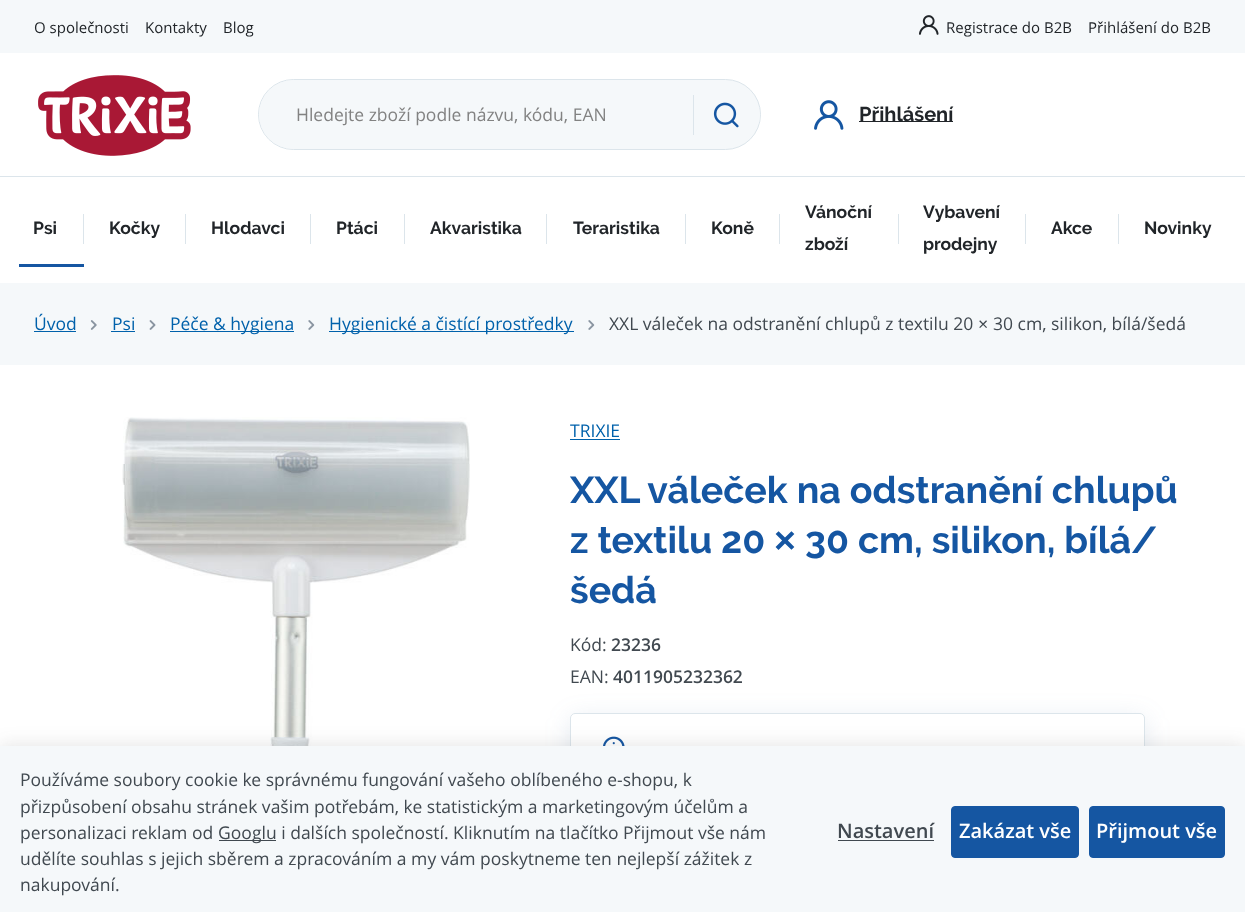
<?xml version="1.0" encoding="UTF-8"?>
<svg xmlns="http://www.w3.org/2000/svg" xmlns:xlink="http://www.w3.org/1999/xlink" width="1245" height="912">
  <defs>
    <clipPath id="clip1"><path d="M 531 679 h 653 v 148 h -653 z m 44 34 h 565 c 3 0 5 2 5 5 v 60 c 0 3 -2 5 -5 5 h -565 c -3 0 -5 -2 -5 -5 v -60 c 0 -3 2 -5 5 -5 z" clip-rule="evenodd" /></clipPath>
  </defs>
  <rect width="100%" height="100%" fill="#ffffff" />
  <rect width="1245" height="53" fill="#f5f8fa" />
  <image x="919" y="15" width="20" height="20" xlink:href="image1.png" />
  <rect y="176" width="1245" height="1" fill="#dce5eb" />
  <image x="38" y="75" width="153" height="81" xlink:href="image2.png" />
  <rect x="258.5" y="79.5" width="502" height="70" rx="35" fill="#f5f8fa" stroke="#dce5eb" />
  <rect x="259" y="80" width="434" height="69" rx="34.5" fill="#f5f8fa" />
  <rect x="693" y="90" width="67" height="50" rx="25" fill="#f5f8fa" />
  <rect x="693" y="95" width="1" height="40" fill="#dce5eb" />
  <image x="713" y="102" width="26" height="26" xlink:href="image3.png" />
  <image x="814" y="100" width="30" height="30" xlink:href="image4.png" />
  <rect x="859" y="121" width="94" height="1" fill="#212529" />
  <rect x="19" y="264" width="65" height="3" fill="#1556a2" />
  <rect x="83" y="214" width="1" height="30" fill="#dce5eb" />
  <rect x="185" y="214" width="1" height="30" fill="#dce5eb" />
  <rect x="310" y="214" width="1" height="30" fill="#dce5eb" />
  <rect x="404" y="214" width="1" height="30" fill="#dce5eb" />
  <rect x="546" y="214" width="1" height="30" fill="#dce5eb" />
  <rect x="685" y="214" width="1" height="30" fill="#dce5eb" />
  <rect x="779" y="214" width="1" height="30" fill="#dce5eb" />
  <rect x="898" y="214" width="1" height="30" fill="#dce5eb" />
  <rect x="1025" y="214" width="1" height="30" fill="#dce5eb" />
  <rect x="1118" y="214" width="1" height="30" fill="#dce5eb" />
  <rect y="283" width="1245" height="82" fill="#f5f8fa" />
  <rect x="34" y="331" width="42" height="1" fill="#0061ab" />
  <image x="90" y="320" width="7" height="10" xlink:href="image5.png" />
  <rect x="111" y="331" width="24" height="1" fill="#0061ab" />
  <image x="149" y="320" width="7" height="10" xlink:href="image6.png" />
  <rect x="170" y="331" width="124" height="1" fill="#0061ab" />
  <image x="308" y="320" width="7" height="10" xlink:href="image7.png" />
  <rect x="329" y="331" width="245" height="1" fill="#0061ab" />
  <image x="588" y="320" width="7" height="10" xlink:href="image7.png" />
  <image x="122" y="417" width="348" height="329" xlink:href="image8.png" />
  <rect x="570" y="439" width="50" height="1" fill="#0061ab" />
  <g clip-path="url(#clip1)">
    <rect x="570" y="718" width="575" height="70" rx="5" fill="#597ba5" fill-opacity="0.15" filter="blur(12.5px)" />
  </g>
  <rect x="570.5" y="713.5" width="574" height="69" rx="4.5" fill="none" stroke="#dce5eb" />
  <image x="603" y="736" width="22" height="10" xlink:href="image9.png" />
  <rect y="746" width="1245" height="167" fill="#373737" fill-opacity="0.15" filter="blur(9.5px)" />
  <rect y="746" width="1245" height="166" fill="#f5f8fa" />
  <rect x="219" y="840" width="57" height="1" fill="#414950" />
  <rect x="838" y="840" width="96" height="1" fill="#414950" />
  <rect x="951.5" y="806.5" width="127" height="51" rx="3.5" fill="#1556a2" stroke="#1556a2" />
  <rect x="1089.5" y="806.5" width="135" height="51" rx="3.5" fill="#1556a2" stroke="#1556a2" />
  <text x="34" y="33" style="font-family: Open Sans; font-size: 15px; fill: #212529">O společnosti</text>
  <text x="145" y="33" style="font-family: Open Sans; font-size: 15px; fill: #212529">Kontakty</text>
  <text x="223" y="33" style="font-family: Open Sans; font-size: 15px; fill: #212529">Blog</text>
  <text x="946" y="33" style="font-family: Open Sans; font-size: 15px; fill: #212529">Registrace do B2B</text>
  <text x="1088" y="33" style="font-family: Open Sans; font-size: 15px; fill: #212529">Přihlášení do B2B</text>
  <text x="296" y="121" style="font-family: Open Sans; font-size: 17.5px; fill: #828282">Hledejte zboží podle názvu, kódu, EAN</text>
  <text x="859" y="121" style="font-family: Raleway; font-size: 20px; font-weight: bold; fill: #212529">Přihlášení</text>
  <text x="33" y="234" style="font-family: Raleway; font-size: 17.5px; font-weight: bold; fill: #212529">Psi</text>
  <text x="109" y="234" style="font-family: Raleway; font-size: 17.5px; font-weight: bold; fill: #212529">Kočky</text>
  <text x="211" y="234" style="font-family: Raleway; font-size: 17.5px; font-weight: bold; fill: #212529">Hlodavci</text>
  <text x="336" y="234" style="font-family: Raleway; font-size: 17.5px; font-weight: bold; fill: #212529">Ptáci</text>
  <text x="430" y="234" style="font-family: Raleway; font-size: 17.5px; font-weight: bold; fill: #212529">Akvaristika</text>
  <text x="573" y="234" style="font-family: Raleway; font-size: 17.5px; font-weight: bold; fill: #212529">Teraristika</text>
  <text x="711" y="234" style="font-family: Raleway; font-size: 17.5px; font-weight: bold; fill: #212529">Koně</text>
  <text x="805" y="218" style="font-family: Raleway; font-size: 17.5px; font-weight: bold; fill: #212529">Vánoční</text>
  <text x="805" y="250" style="font-family: Raleway; font-size: 17.5px; font-weight: bold; fill: #212529">zboží</text>
  <text x="923" y="218" style="font-family: Raleway; font-size: 17.5px; font-weight: bold; fill: #212529">Vybavení</text>
  <text x="923" y="250" style="font-family: Raleway; font-size: 17.5px; font-weight: bold; fill: #212529">prodejny</text>
  <text x="1051" y="234" style="font-family: Raleway; font-size: 17.5px; font-weight: bold; fill: #212529">Akce</text>
  <text x="1144" y="234" style="font-family: Raleway; font-size: 17.5px; font-weight: bold; fill: #212529">Novinky</text>
  <text x="34" y="330" style="font-family: Open Sans; font-size: 17.5px; fill: #0061ab">Úvod</text>
  <text x="112" y="330" style="font-family: Open Sans; font-size: 17.5px; fill: #0061ab">Psi</text>
  <text x="170" y="330" style="font-family: Open Sans; font-size: 17.5px; fill: #0061ab">Péče &amp; hygiena</text>
  <text x="329" y="330" style="font-family: Open Sans; font-size: 17.5px; fill: #0061ab">Hygienické a čistící prostředky</text>
  <text x="609" y="330" style="font-family: Open Sans; font-size: 17.5px; fill: #414950">XXL váleček na odstranění chlupů z textilu 20</text>
  <text x="978" y="330" style="font-family: Liberation Sans; font-size: 17.5px; fill: #414950">×</text>
  <text x="993" y="330" style="font-family: Open Sans; font-size: 17.5px; fill: #414950">30 cm, silikon, bílá/šedá</text>
  <text x="570" y="437" style="font-family: Open Sans; font-size: 17.5px; fill: #0061ab">TRIXIE</text>
  <text x="570" y="503" style="font-family: Raleway; font-size: 37.5px; font-weight: bold; fill: #1556a2">XXL váleček na odstranění chlupů</text>
  <text x="570" y="553" style="font-family: Raleway; font-size: 37.5px; font-weight: bold; fill: #1556a2">z textilu 20</text>
  <text x="774" y="553" style="font-family: Liberation Sans; font-size: 37.5px; font-weight: bold; fill: #1556a2">×</text>
  <text x="805" y="553" style="font-family: Raleway; font-size: 37.5px; font-weight: bold; fill: #1556a2">30 cm, silikon, bílá/</text>
  <text x="570" y="603" style="font-family: Raleway; font-size: 37.5px; font-weight: bold; fill: #1556a2">šedá</text>
  <text x="570" y="651" style="font-family: Open Sans; font-size: 17.5px; fill: #414950">Kód:</text>
  <text x="611" y="651" style="font-family: Open Sans; font-size: 17.5px; font-weight: 600; fill: #414950">23236</text>
  <text x="570" y="683" style="font-family: Open Sans; font-size: 17.5px; fill: #414950">EAN:</text>
  <text x="613" y="683" style="font-family: Open Sans; font-size: 17.5px; font-weight: 600; fill: #414950">4011905232362</text>
  <text x="20" y="786" style="font-family: Open Sans; font-size: 17.5px; fill: #414950">Používáme soubory cookie ke správnému fungování vašeho oblíbeného e-shopu, k</text>
  <text x="20" y="813" style="font-family: Open Sans; font-size: 17.5px; fill: #414950">přizpůsobení obsahu stránek vašim potřebám, ke statistickým a marketingovým účelům a</text>
  <text x="20" y="839" style="font-family: Open Sans; font-size: 17.5px; fill: #414950">personalizaci reklam od</text>
  <text x="218" y="839" style="font-family: Open Sans; font-size: 17.5px; fill: #414950">Googlu i dalších společností. Kliknutím na tlačítko Přijmout vše nám</text>
  <text x="20" y="865" style="font-family: Open Sans; font-size: 17.5px; fill: #414950">udělíte souhlas s jejich sběrem a zpracováním a my vám poskytneme ten nejlepší zážitek z</text>
  <text x="20" y="891" style="font-family: Open Sans; font-size: 17.5px; fill: #414950">nakupování.</text>
  <text x="837" y="838" style="font-family: Open Sans; font-size: 20px; font-weight: 600; fill: #414950">Nastavení</text>
  <text x="959" y="838" style="font-family: Open Sans; font-size: 20px; font-weight: 600; fill: #ffffff">Zakázat vše</text>
  <text x="1096" y="838" style="font-family: Open Sans; font-size: 20px; font-weight: 600; fill: #ffffff">Přijmout vše</text>
</svg>
